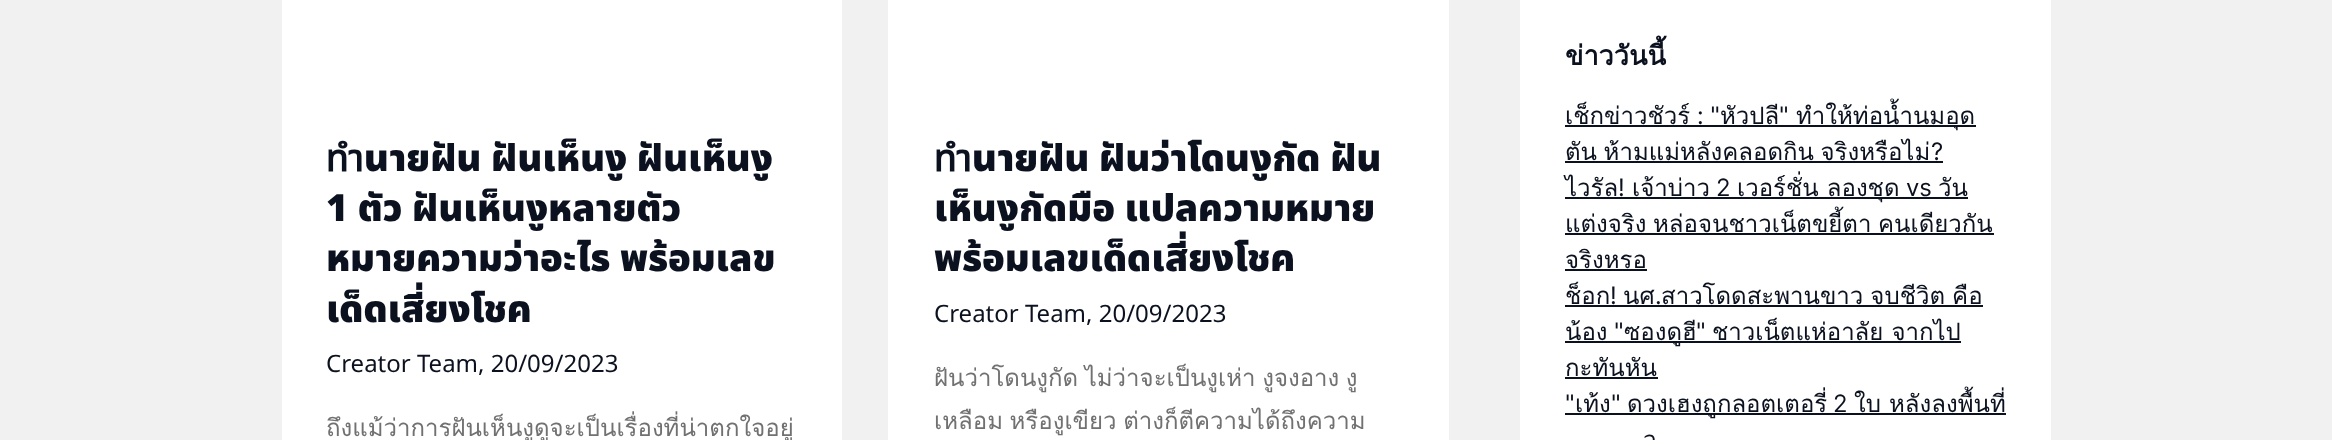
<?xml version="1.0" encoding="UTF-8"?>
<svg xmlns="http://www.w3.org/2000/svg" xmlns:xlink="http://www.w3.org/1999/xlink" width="2332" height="440">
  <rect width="100%" height="100%" fill="#f1f1f1" />
  <rect x="282" width="560" height="440" fill="#ffffff" />
  <rect x="888" width="561" height="440" fill="#ffffff" />
  <rect x="1520" width="531" height="440" fill="#ffffff" />
  <rect x="1565" y="125" width="411" height="2" fill="#0b111e" />
  <rect x="1565" y="161" width="378" height="2" fill="#0b111e" />
  <rect x="1565" y="197" width="403" height="2" fill="#0b111e" />
  <rect x="1565" y="233" width="429" height="2" fill="#0b111e" />
  <rect x="1565" y="269" width="82" height="2" fill="#0b111e" />
  <rect x="1565" y="305" width="418" height="2" fill="#0b111e" />
  <rect x="1565" y="341" width="396" height="2" fill="#0b111e" />
  <rect x="1565" y="377" width="93" height="2" fill="#0b111e" />
  <rect x="1565" y="413" width="441" height="2" fill="#0b111e" />
  <text x="326" y="171" style="font-family: Noto Sans Thai; font-size: 37.5px; font-weight: 900; fill: #0b111e">ทำนายฝัน ฝันเห็นงู ฝันเห็นงู</text>
  <text x="326" y="221" style="font-family: Noto Sans Thai; font-size: 37.5px; font-weight: 900; fill: #0b111e">1 ตัว ฝันเห็นงูหลายตัว</text>
  <text x="326" y="271" style="font-family: Noto Sans Thai; font-size: 37.5px; font-weight: 900; fill: #0b111e">หมายความว่าอะไร พร้อมเลข</text>
  <text x="326" y="322" style="font-family: Noto Sans Thai; font-size: 37.5px; font-weight: 900; fill: #0b111e">เด็ดเสี่ยงโชค</text>
  <text x="326" y="372" style="font-family: Noto Sans Thai; font-size: 24px; fill: #0b111e">Creator Team, 20/09/2023</text>
  <text x="326" y="436" style="font-family: Loma; font-size: 24px; fill: #717171">ถึงแม้ว่าการฝันเห็นงูดูจะเป็นเรื่องที่น่าตกใจอยู่</text>
  <text x="934" y="171" style="font-family: Noto Sans Thai; font-size: 37.5px; font-weight: 900; fill: #0b111e">ทำนายฝัน ฝันว่าโดนงูกัด ฝัน</text>
  <text x="934" y="221" style="font-family: Noto Sans Thai; font-size: 37.5px; font-weight: 900; fill: #0b111e">เห็นงูกัดมือ แปลความหมาย</text>
  <text x="934" y="271" style="font-family: Noto Sans Thai; font-size: 37.5px; font-weight: 900; fill: #0b111e">พร้อมเลขเด็ดเสี่ยงโชค</text>
  <text x="934" y="322" style="font-family: Noto Sans Thai; font-size: 24px; fill: #0b111e">Creator Team, 20/09/2023</text>
  <text x="934" y="386" word-spacing="-1.5" style="font-family: Loma; font-size: 24px; fill: #717171">ฝันว่าโดนงูกัด ไม่ว่าจะเป็นงูเห่า งูจงอาง งู</text>
  <text x="934" y="429" word-spacing="-1.5" style="font-family: Loma; font-size: 24px; fill: #717171">เหลือม หรืองูเขียว ต่างก็ตีความได้ถึงความ</text>
  <text x="1565" y="65" style="font-family: Loma; font-size: 27px; font-weight: bold; fill: #0b111e">ข่าววันนี้</text>
  <text x="1565" y="124" style="font-family: Loma; font-size: 24px; fill: #0b111e">เช็กข่าวชัวร์</text>
  <text x="1697" y="124" style="font-family: Inter; font-size: 24px; fill: #0b111e">: "</text>
  <text x="1720" y="124" style="font-family: Loma; font-size: 24px; fill: #0b111e">หัวปลี</text>
  <text x="1779" y="124" style="font-family: Inter; font-size: 24px; fill: #0b111e">"</text>
  <text x="1796" y="124" style="font-family: Loma; font-size: 24px; fill: #0b111e">ทำให้ท่อน้ำนมอุด</text>
  <text x="1565" y="160" word-spacing="-1.5" style="font-family: Loma; font-size: 24px; fill: #0b111e">ตัน ห้ามแม่หลังคลอดกิน จริงหรือไม่</text>
  <text x="1931" y="160" style="font-family: Inter; font-size: 24px; fill: #0b111e">?</text>
  <text x="1565" y="196" style="font-family: Loma; font-size: 24px; fill: #0b111e">ไวรัล</text>
  <text x="1618" y="196" style="font-family: Inter; font-size: 24px; fill: #0b111e">!</text>
  <text x="1632" y="196" style="font-family: Loma; font-size: 24px; fill: #0b111e">เจ้าบ่าว</text>
  <text x="1716" y="196" style="font-family: Inter; font-size: 24px; fill: #0b111e">2</text>
  <text x="1737" y="196" style="font-family: Loma; font-size: 24px; fill: #0b111e">เวอร์ชั่น ลองชุด</text>
  <text x="1906" y="196" style="font-family: Inter; font-size: 24px; fill: #0b111e">vs</text>
  <text x="1938" y="196" style="font-family: Loma; font-size: 24px; fill: #0b111e">วัน</text>
  <text x="1565" y="232" word-spacing="-1.5" style="font-family: Loma; font-size: 24px; fill: #0b111e">แต่งจริง หล่อจนชาวเน็ตขยี้ตา คนเดียวกัน</text>
  <text x="1565" y="268" style="font-family: Loma; font-size: 24px; fill: #0b111e">จริงหรอ</text>
  <text x="1565" y="304" style="font-family: Loma; font-size: 24px; fill: #0b111e">ช็อก</text>
  <text x="1610" y="304" style="font-family: Inter; font-size: 24px; fill: #0b111e">!</text>
  <text x="1623" y="304" style="font-family: Loma; font-size: 24px; fill: #0b111e">นศ</text>
  <text x="1655" y="304" style="font-family: Inter; font-size: 24px; fill: #0b111e">.</text>
  <text x="1661" y="304" word-spacing="-1" style="font-family: Loma; font-size: 24px; fill: #0b111e">สาวโดดสะพานขาว จบชีวิต คือ</text>
  <text x="1565" y="340" style="font-family: Loma; font-size: 24px; fill: #0b111e">น้อง</text>
  <text x="1614" y="340" style="font-family: Inter; font-size: 24px; fill: #0b111e">"</text>
  <text x="1624" y="340" style="font-family: Loma; font-size: 24px; fill: #0b111e">ซองดูฮี</text>
  <text x="1696" y="340" style="font-family: Inter; font-size: 24px; fill: #0b111e">"</text>
  <text x="1712" y="340" style="font-family: Loma; font-size: 24px; fill: #0b111e">ชาวเน็ตแห่อาลัย จากไป</text>
  <text x="1565" y="376" style="font-family: Loma; font-size: 24px; fill: #0b111e">กะทันหัน</text>
  <text x="1565" y="412" style="font-family: Inter; font-size: 24px; fill: #0b111e">"</text>
  <text x="1575" y="412" style="font-family: Loma; font-size: 24px; fill: #0b111e">เท้ง</text>
  <text x="1611" y="412" style="font-family: Inter; font-size: 24px; fill: #0b111e">"</text>
  <text x="1627" y="412" style="font-family: Loma; font-size: 24px; fill: #0b111e">ดวงเฮงถูกลอตเตอรี่</text>
  <text x="1833" y="412" style="font-family: Inter; font-size: 24px; fill: #0b111e">2</text>
  <text x="1854" y="412" style="font-family: Loma; font-size: 24px; fill: #0b111e">ใบ หลังลงพื้นที่</text>
  <text x="1643" y="448" word-spacing="-1.5" style="font-family: Loma; font-size: 24px; fill: #0b111e">ว</text>
</svg>
